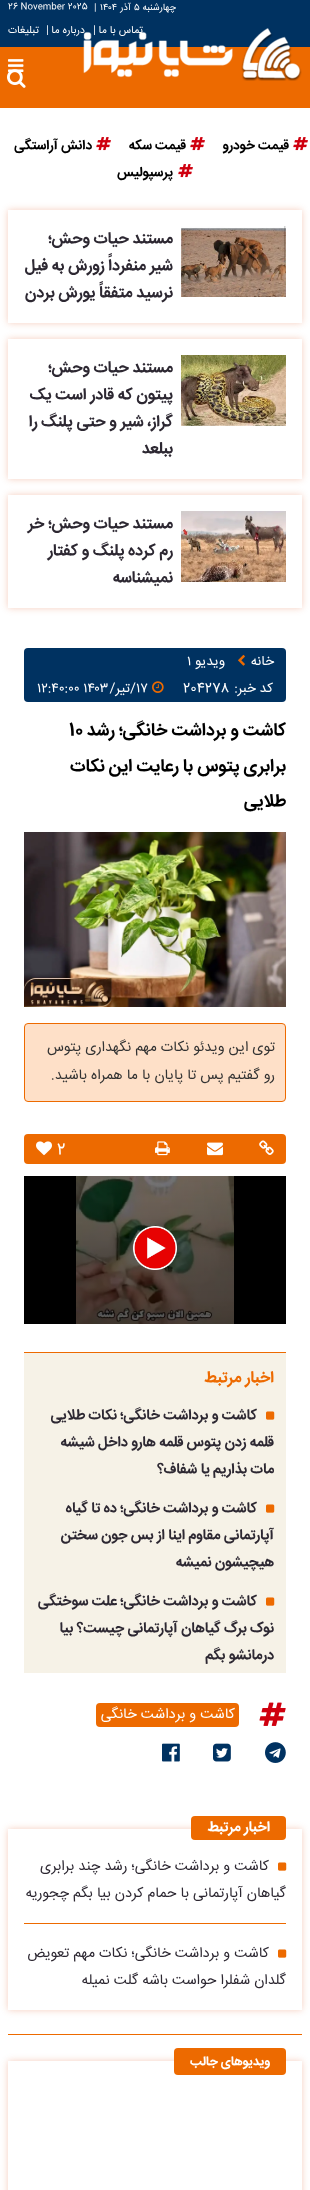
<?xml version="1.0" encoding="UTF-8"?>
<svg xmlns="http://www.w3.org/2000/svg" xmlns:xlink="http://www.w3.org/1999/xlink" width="310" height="2190">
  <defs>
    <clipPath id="clip1"><path d="M 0 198 h 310 v 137 h -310 z m 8 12 h 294 v 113 h -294 z" clip-rule="evenodd" /></clipPath>
    <clipPath id="clip2"><path d="M 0 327 h 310 v 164 h -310 z m 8 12 h 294 v 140 h -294 z" clip-rule="evenodd" /></clipPath>
    <clipPath id="clip3"><path d="M 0 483 h 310 v 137 h -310 z m 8 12 h 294 v 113 h -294 z" clip-rule="evenodd" /></clipPath>
    <linearGradient id="g1" gradientUnits="userSpaceOnUse" x1="155" y1="1084" x2="155" y2="1324"><stop offset="0" stop-color="#000000" stop-opacity="0" /><stop offset="0.77" stop-color="#000000" stop-opacity="0.4" /><stop offset="1" stop-color="#000000" stop-opacity="0.4" /></linearGradient>
    <clipPath id="clip4"><path d="M 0 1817 h 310 v 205 h -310 z m 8 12 h 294 v 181 h -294 z" clip-rule="evenodd" /></clipPath>
    <clipPath id="clip5"><path d="M 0 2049 h 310 v 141 h -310 z m 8 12 h 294 v 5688 h -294 z" clip-rule="evenodd" /></clipPath>
  </defs>
  <rect width="100%" height="100%" fill="#ffffff" />
  <rect width="310" height="47" fill="#003261" />
  <rect y="47" width="310" height="61" fill="#ed6a00" />
  <image x="8" y="59" width="16" height="13" xlink:href="image3.png" />
  <image x="7" y="69" width="19" height="19" xlink:href="image1.png" />
  <image x="293" y="137" width="15" height="14" xlink:href="image4.png" />
  <image x="190" y="137" width="15" height="14" xlink:href="image4.png" />
  <image x="96" y="137" width="15" height="14" xlink:href="image4.png" />
  <image x="178" y="164" width="15" height="14" xlink:href="image4.png" />
  <g clip-path="url(#clip1)">
    <rect x="8" y="210" width="294" height="113" fill="#d73c00" fill-opacity="0.26" filter="blur(3.5px)" />
  </g>
  <image x="181" y="226" width="105" height="71" xlink:href="image5.png" />
  <g clip-path="url(#clip2)">
    <rect x="8" y="339" width="294" height="140" fill="#d73c00" fill-opacity="0.26" filter="blur(3.5px)" />
  </g>
  <image x="181" y="355" width="105" height="71" xlink:href="image6.png" />
  <g clip-path="url(#clip3)">
    <rect x="8" y="495" width="294" height="113" fill="#d73c00" fill-opacity="0.26" filter="blur(3.5px)" />
  </g>
  <image x="181" y="511" width="105" height="71" xlink:href="image7.png" />
  <rect x="24" y="648" width="262" height="54" rx="4" fill="#003261" />
  <image x="238" y="654" width="7" height="12" xlink:href="image8.png" />
  <image x="152" y="681" width="12" height="12" xlink:href="image9.png" />
  <image x="24" y="832" width="262" height="175" xlink:href="image10.png" />
  <rect x="24.5" y="1023.5" width="261" height="78" rx="3.5" fill="#fee0c8" stroke="#ed6a00" />
  <rect x="24" y="1134" width="262" height="30" rx="4" fill="#ed6a00" />
  <image x="259" y="1140" width="15" height="15" xlink:href="image11.png" />
  <image x="207" y="1142" width="16" height="14" xlink:href="image12.png" />
  <image x="155" y="1141" width="15" height="15" xlink:href="image13.png" />
  <image x="36" y="1141" width="16" height="15" xlink:href="image14.png" />
  <rect x="24" y="1176" width="262" height="148" fill="#000000" />
  <image x="76" y="1176" width="158" height="148" xlink:href="image15.png" />
  <rect x="76" y="1176" width="158" height="148" fill="url(#g1)" />
  <image x="133" y="1226" width="44" height="44" xlink:href="image16.png" />
  <rect x="24" y="1353" width="262" height="320" fill="#f6f2e7" />
  <rect x="24" y="1352" width="262" height="1" fill="#ed6a00" />
  <image x="266" y="1411" width="9" height="9" xlink:href="image17.png" />
  <image x="266" y="1504" width="9" height="9" xlink:href="image17.png" />
  <image x="266" y="1597" width="9" height="9" xlink:href="image17.png" />
  <image x="259" y="1702" width="27" height="24" xlink:href="image18.png" />
  <rect x="96" y="1703" width="143" height="24" rx="4" fill="#ed6a00" />
  <image x="265" y="1742" width="21" height="21" xlink:href="image19.png" />
  <image x="213" y="1743" width="18" height="19" xlink:href="image20.png" />
  <image x="162" y="1743" width="18" height="19" xlink:href="image21.png" />
  <g clip-path="url(#clip4)">
    <rect x="8" y="1829" width="294" height="181" fill="#d73c00" fill-opacity="0.26" filter="blur(3.5px)" />
  </g>
  <rect x="191" y="1816" width="95" height="24" rx="4" fill="#ed6a00" />
  <rect x="24" y="1923" width="262" height="1" fill="#ed6a00" />
  <image x="278" y="1862" width="9" height="9" xlink:href="image22.png" />
  <image x="278" y="1949" width="9" height="9" xlink:href="image22.png" />
  <rect x="8" y="2034" width="294" height="1" fill="#ed6a00" />
  <g clip-path="url(#clip5)">
    <rect x="8" y="2061" width="294" height="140" fill="#d73c00" fill-opacity="0.26" filter="blur(3.5px)" />
  </g>
  <rect x="174" y="2048" width="112" height="27" rx="4" fill="#ed6a00" />
  <text x="176" y="10" style="font-family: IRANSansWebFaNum; font-size: 9.5px; direction: rtl; fill: #ffffff">چهارشنبه</text>
  <text x="134" y="10" style="font-family: IRANSansWebFaNum; font-size: 9.5px; fill: #ffffff">۵</text>
  <text x="131" y="10" style="font-family: IRANSansWebFaNum; font-size: 9.5px; direction: rtl; fill: #ffffff">آذر</text>
  <text x="100" y="10" style="font-family: IRANSansWebFaNum; font-size: 9.5px; fill: #ffffff">۱۴۰۴</text>
  <text x="94" y="10" style="font-family: IRANSansWebFaNum; font-size: 9.5px; fill: #ffffff">|</text>
  <text x="8" y="9" style="font-family: IRANSansWebFaNum; font-size: 9px; fill: #ffffff">26 November 2025</text>
  <text x="143" y="33" style="font-family: IRANSansWebFaNum; font-size: 10.5px; direction: rtl; fill: #ffffff">تماس با ما</text>
  <text x="93" y="33" style="font-family: IRANSansWebFaNum; font-size: 11px; fill: #ffffff">|</text>
  <text x="85" y="33" style="font-family: IRANSansWebFaNum; font-size: 10.5px; direction: rtl; fill: #ffffff">درباره ما</text>
  <text x="46" y="33" style="font-family: IRANSansWebFaNum; font-size: 11px; fill: #ffffff">|</text>
  <text x="39" y="33" style="font-family: IRANSansWebFaNum; font-size: 10.5px; direction: rtl; fill: #ffffff">تبلیغات</text>
  <image x="83" y="28" width="219" height="53" xlink:href="image2.png" />
  <text x="289" y="149" style="font-family: IRANSansWebFaNum; font-size: 13.5px; font-weight: bold; direction: rtl; fill: #000000">قیمت خودرو</text>
  <text x="186" y="149" style="font-family: IRANSansWebFaNum; font-size: 13.5px; font-weight: bold; direction: rtl; fill: #000000">قیمت سکه</text>
  <text x="92" y="149" style="font-family: IRANSansWebFaNum; font-size: 13.5px; font-weight: bold; direction: rtl; fill: #000000">دانش آراستگی</text>
  <text x="173" y="176" style="font-family: IRANSansWebFaNum; font-size: 13.5px; font-weight: bold; direction: rtl; fill: #000000">پرسپولیس</text>
  <text x="173" y="243" style="font-family: IRANSansWebFaNum; font-size: 16px; font-weight: bold; direction: rtl; fill: #2d2832">مستند حیات وحش؛</text>
  <text x="173" y="270" style="font-family: IRANSansWebFaNum; font-size: 16px; font-weight: bold; direction: rtl; fill: #2d2832">شیر منفرداً زورش به فیل</text>
  <text x="173" y="297" style="font-family: IRANSansWebFaNum; font-size: 16px; font-weight: bold; direction: rtl; fill: #2d2832">نرسید متفقاً یورش بردن</text>
  <text x="173" y="372" style="font-family: IRANSansWebFaNum; font-size: 16px; font-weight: bold; direction: rtl; fill: #2d2832">مستند حیات وحش؛</text>
  <text x="173" y="399" style="font-family: IRANSansWebFaNum; font-size: 16px; font-weight: bold; direction: rtl; fill: #2d2832">پیتون که قادر است یک</text>
  <text x="173" y="426" style="font-family: IRANSansWebFaNum; font-size: 16px; font-weight: bold; direction: rtl; fill: #2d2832">گراز، شیر و حتی پلنگ را</text>
  <text x="173" y="453" style="font-family: IRANSansWebFaNum; font-size: 16px; font-weight: bold; direction: rtl; fill: #2d2832">ببلعد</text>
  <text x="173" y="528" style="font-family: IRANSansWebFaNum; font-size: 16px; font-weight: bold; direction: rtl; fill: #2d2832">مستند حیات وحش؛ خر</text>
  <text x="173" y="555" style="font-family: IRANSansWebFaNum; font-size: 16px; font-weight: bold; direction: rtl; fill: #2d2832">رم کرده پلنگ و کفتار</text>
  <text x="173" y="582" style="font-family: IRANSansWebFaNum; font-size: 16px; font-weight: bold; direction: rtl; fill: #2d2832">نمیشناسه</text>
  <text x="274" y="665" style="font-family: IRANSansWebFaNum; font-size: 13.5px; direction: rtl; fill: #ffffff">خانه</text>
  <text x="225" y="665" style="font-family: IRANSansWebFaNum; font-size: 13.5px; direction: rtl; fill: #ffffff">ویدیو</text>
  <text x="187" y="665" style="font-family: IRANSansWebFaNum; font-size: 13.5px; fill: #ffffff">۱</text>
  <text x="273" y="692" style="font-family: IRANSansWebFaNum; font-size: 13.5px; direction: rtl; fill: #ffffff">کد خبر:</text>
  <text x="183" y="692" style="font-family: IRANSansWebFaNum; font-size: 13.5px; fill: #ffffff">204278</text>
  <text x="136" y="692" style="font-family: IRANSansWebFaNum; font-size: 13.5px; fill: #ffffff">۱۷</text>
  <text x="136" y="692" style="font-family: IRANSansWebFaNum; font-size: 13.5px; direction: rtl; fill: #ffffff">/تیر/</text>
  <text x="37" y="692" style="font-family: IRANSansWebFaNum; font-size: 13.5px; fill: #ffffff">۱۲:۴۰:۰۰ ۱۴۰۳</text>
  <text x="286" y="735" style="font-family: IRANSansWebFaNum; font-size: 17.6px; font-weight: bold; direction: rtl; fill: #000000">کاشت و برداشت خانگی؛ رشد</text>
  <text x="69" y="735" style="font-family: IRANSansWebFaNum; font-size: 17.6px; font-weight: bold; fill: #000000">10</text>
  <text x="286" y="771" style="font-family: IRANSansWebFaNum; font-size: 17.6px; font-weight: bold; direction: rtl; fill: #000000">برابری پتوس با رعایت این نکات</text>
  <text x="286" y="806" style="font-family: IRANSansWebFaNum; font-size: 17.6px; font-weight: bold; direction: rtl; fill: #000000">طلایی</text>
  <text x="275" y="1051" style="font-family: IRANSansWebFaNum; font-size: 14.4px; direction: rtl; fill: #333333">توی این ویدئو نکات مهم نگهداری پتوس</text>
  <text x="275" y="1079" style="font-family: IRANSansWebFaNum; font-size: 14.4px; direction: rtl; fill: #333333">رو گفتیم پس تا پایان با ما همراه باشید.</text>
  <text x="57" y="1154" style="font-family: IRANSansWebFaNum; font-size: 16px; fill: #ffffff">2</text>
  <text x="274" y="1382" style="font-family: IRANSansWebFaNum; font-size: 16px; font-weight: bold; direction: rtl; fill: #ed6a00">اخبار مرتبط</text>
  <text x="257" y="1419" style="font-family: IRANSansWebFaNum; font-size: 14.4px; font-weight: bold; direction: rtl; fill: #2d2832">کاشت و برداشت خانگی؛ نکات طلایی</text>
  <text x="274" y="1446" style="font-family: IRANSansWebFaNum; font-size: 14.4px; font-weight: bold; direction: rtl; fill: #2d2832">قلمه زدن پتوس قلمه هارو داخل شیشه</text>
  <text x="274" y="1473" style="font-family: IRANSansWebFaNum; font-size: 14.4px; font-weight: bold; direction: rtl; fill: #2d2832">مات بذاریم یا شفاف؟</text>
  <text x="257" y="1512" style="font-family: IRANSansWebFaNum; font-size: 14.4px; font-weight: bold; direction: rtl; fill: #2d2832">کاشت و برداشت خانگی؛ ده تا گیاه</text>
  <text x="274" y="1539" style="font-family: IRANSansWebFaNum; font-size: 14.4px; font-weight: bold; direction: rtl; fill: #2d2832">آپارتمانی مقاوم اینا از بس جون سختن</text>
  <text x="274" y="1566" style="font-family: IRANSansWebFaNum; font-size: 14.4px; font-weight: bold; direction: rtl; fill: #2d2832">هیچیشون نمیشه</text>
  <text x="257" y="1605" style="font-family: IRANSansWebFaNum; font-size: 14.4px; font-weight: bold; direction: rtl; fill: #2d2832">کاشت و برداشت خانگی؛ علت سوختگی</text>
  <text x="274" y="1632" style="font-family: IRANSansWebFaNum; font-size: 14.4px; font-weight: bold; direction: rtl; fill: #2d2832">نوک برگ گیاهان آپارتمانی چیست؟ بیا</text>
  <text x="274" y="1659" style="font-family: IRANSansWebFaNum; font-size: 14.4px; font-weight: bold; direction: rtl; fill: #2d2832">درمانشو بگم</text>
  <text x="235" y="1718" style="font-family: IRANSansWebFaNum; font-size: 14.4px; direction: rtl; fill: #ffffff">کاشت و برداشت خانگی</text>
  <text x="270" y="1831" style="font-family: IRANSansWebFaNum; font-size: 14.4px; font-weight: bold; direction: rtl; fill: #ffffff">اخبار مرتبط</text>
  <text x="269" y="1870" style="font-family: IRANSansWebFaNum; font-size: 14.4px; direction: rtl; fill: #2d2832">کاشت و برداشت خانگی؛ رشد چند برابری</text>
  <text x="286" y="1897" style="font-family: IRANSansWebFaNum; font-size: 14.4px; direction: rtl; fill: #2d2832">گیاهان آپارتمانی با حمام کردن بیا بگم چجوریه</text>
  <text x="269" y="1957" style="font-family: IRANSansWebFaNum; font-size: 14.4px; direction: rtl; fill: #2d2832">کاشت و برداشت خانگی؛ نکات مهم تعویض</text>
  <text x="286" y="1984" style="font-family: IRANSansWebFaNum; font-size: 14.4px; direction: rtl; fill: #2d2832">گلدان شفلرا حواست باشه گلت نمیله</text>
  <text x="270" y="2065" style="font-family: IRANSansWebFaNum; font-size: 12.75px; font-weight: bold; direction: rtl; fill: #ffffff">ویدیوهای جالب</text>
</svg>
